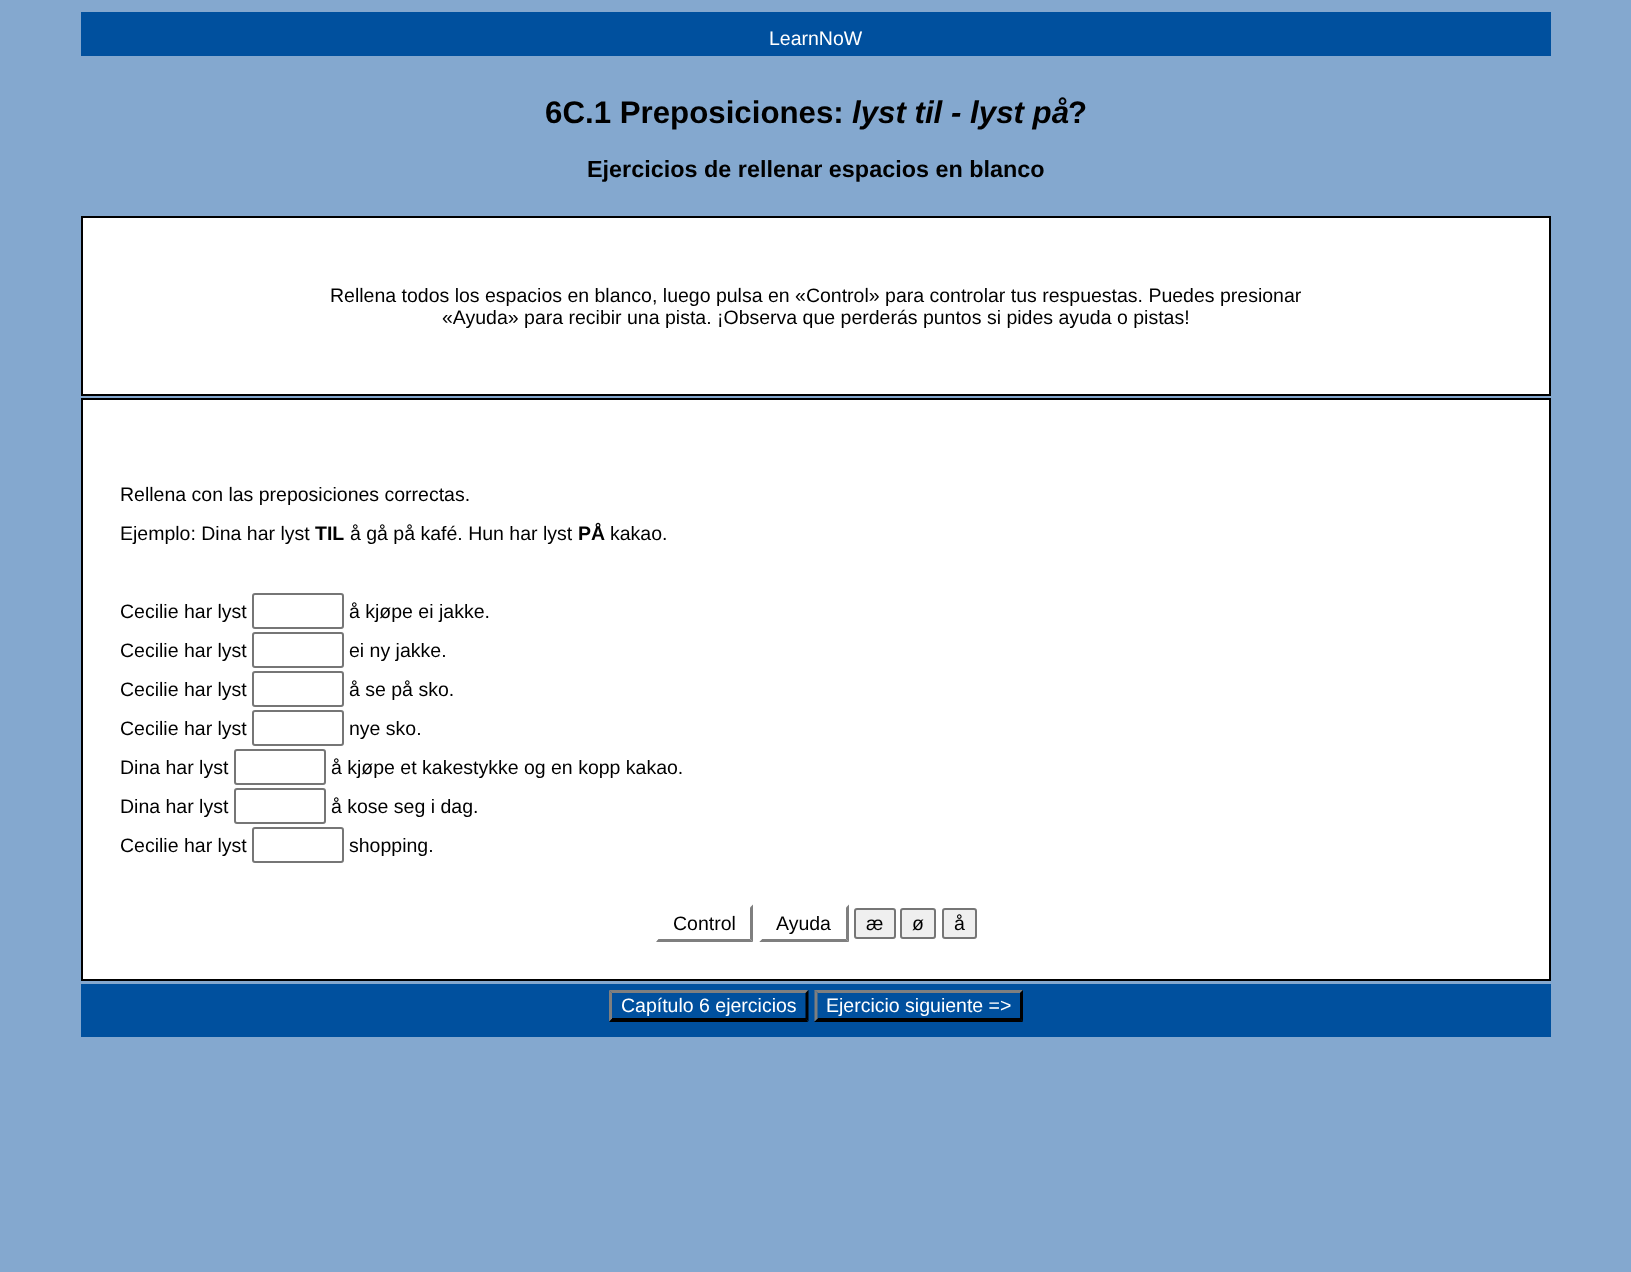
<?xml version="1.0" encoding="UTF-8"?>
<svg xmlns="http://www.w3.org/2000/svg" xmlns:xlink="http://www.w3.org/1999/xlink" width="1631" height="1272">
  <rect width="100%" height="100%" fill="#84a8cf" />
  <rect x="81" y="12" width="1470" height="44" fill="#00509e" />
  <rect x="82" y="217" width="1468" height="178" fill="#ffffff" stroke="#000000" stroke-width="2" />
  <rect x="82" y="399" width="1468" height="581" fill="#ffffff" stroke="#000000" stroke-width="2" />
  <rect x="253" y="594" width="90" height="34" rx="2" fill="none" stroke="#767676" stroke-width="2" />
  <rect x="253" y="633" width="90" height="34" rx="2" fill="none" stroke="#767676" stroke-width="2" />
  <rect x="253" y="672" width="90" height="34" rx="2" fill="none" stroke="#767676" stroke-width="2" />
  <rect x="253" y="711" width="90" height="34" rx="2" fill="none" stroke="#767676" stroke-width="2" />
  <rect x="235" y="750" width="90" height="34" rx="2" fill="none" stroke="#767676" stroke-width="2" />
  <rect x="235" y="789" width="90" height="34" rx="2" fill="none" stroke="#767676" stroke-width="2" />
  <rect x="253" y="828" width="90" height="34" rx="2" fill="none" stroke="#767676" stroke-width="2" />
  <path d="M 753 904.5 v 37.5 l -3 -3 v -31.5 z" fill="#7f7f7f" />
  <path d="M 753 942 h -97 l 2 -3 h 92 z" fill="#7f7f7f" />
  <path d="M 655.5 942 v -37.5 l 3 3 v 31.5 z" fill="#ffffff" />
  <path d="M 849 904.5 v 37.5 l -3 -3 v -31.5 z" fill="#7f7f7f" />
  <path d="M 849 942 h -90 l 3 -3 h 84 z" fill="#7f7f7f" />
  <path d="M 759 942 v -37.5 l 3 3 v 31.5 z" fill="#ffffff" />
  <rect x="855" y="909" width="40" height="29" rx="2" fill="#efefef" stroke="#767676" stroke-width="2" />
  <rect x="901" y="909" width="34" height="29" rx="2" fill="#efefef" stroke="#767676" stroke-width="2" />
  <rect x="943" y="909" width="33" height="29" rx="2" fill="#efefef" stroke="#767676" stroke-width="2" />
  <rect x="81" y="984" width="1470" height="53" fill="#00509e" />
  <path d="M 609 990 h 199 l -2 3 h -194 z" fill="#7f7f7f" />
  <path d="M 808.5 990 v 31.5 l -3 -3 v -25.5 z" fill="#000000" />
  <path d="M 808 1022 h -199 l 3 -4 h 194 z" fill="#000000" />
  <path d="M 609 1021.5 v -31.5 l 3 3 v 25.5 z" fill="#7f7f7f" />
  <path d="M 814 990 h 209 l -3 3 h -202 z" fill="#7f7f7f" />
  <path d="M 1023 990 v 31.5 l -3 -3 v -25.5 z" fill="#000000" />
  <path d="M 1023 1022 h -209 l 4 -4 h 202 z" fill="#000000" />
  <path d="M 814.5 1021.5 v -31.5 l 3 3 v 25.5 z" fill="#7f7f7f" />
  <text x="769" y="45" style="font-family: Liberation Sans; font-size: 19.5px; fill: #ffffff">LearnNoW</text>
  <text x="545" y="123" style="font-family: Liberation Sans; font-size: 31.25px; font-weight: bold; fill: #000000">6C.1 Preposiciones:</text>
  <text x="852" y="123" style="font-family: Liberation Sans; font-size: 31.25px; font-weight: bold; font-style: italic; fill: #000000">lyst til - lyst på</text>
  <text x="1068" y="123" style="font-family: Liberation Sans; font-size: 31.25px; font-weight: bold; fill: #000000">?</text>
  <text x="587" y="177" style="font-family: Liberation Sans; font-size: 23.4px; font-weight: bold; fill: #000000">Ejercicios de rellenar espacios en blanco</text>
  <text x="330" y="302" style="font-family: Liberation Sans; font-size: 19.5px; fill: #000000">Rellena todos los espacios en blanco, luego pulsa en «Control» para controlar tus respuestas. Puedes presionar</text>
  <text x="442" y="324" style="font-family: Liberation Sans; font-size: 19.5px; fill: #000000">«Ayuda» para recibir una pista. ¡Observa que perderás puntos si pides ayuda o pistas!</text>
  <text x="120" y="501" style="font-family: Liberation Sans; font-size: 19.5px; fill: #000000">Rellena con las preposiciones correctas.</text>
  <text x="120" y="540" style="font-family: Liberation Sans; font-size: 19.5px; fill: #000000">Ejemplo: Dina har lyst</text>
  <text x="315" y="540" style="font-family: Liberation Sans; font-size: 19.5px; font-weight: bold; fill: #000000">TIL</text>
  <text x="350" y="540" style="font-family: Liberation Sans; font-size: 19.5px; fill: #000000">å gå på kafé. Hun har lyst</text>
  <text x="578" y="540" style="font-family: Liberation Sans; font-size: 19.5px; font-weight: bold; fill: #000000">PÅ</text>
  <text x="610" y="540" style="font-family: Liberation Sans; font-size: 19.5px; fill: #000000">kakao.</text>
  <text x="120" y="618" style="font-family: Liberation Sans; font-size: 19.5px; fill: #000000">Cecilie har lyst</text>
  <text x="349" y="618" style="font-family: Liberation Sans; font-size: 19.5px; fill: #000000">å kjøpe ei jakke.</text>
  <text x="120" y="657" style="font-family: Liberation Sans; font-size: 19.5px; fill: #000000">Cecilie har lyst</text>
  <text x="349" y="657" style="font-family: Liberation Sans; font-size: 19.5px; fill: #000000">ei ny jakke.</text>
  <text x="120" y="696" style="font-family: Liberation Sans; font-size: 19.5px; fill: #000000">Cecilie har lyst</text>
  <text x="349" y="696" style="font-family: Liberation Sans; font-size: 19.5px; fill: #000000">å se på sko.</text>
  <text x="120" y="735" style="font-family: Liberation Sans; font-size: 19.5px; fill: #000000">Cecilie har lyst</text>
  <text x="349" y="735" style="font-family: Liberation Sans; font-size: 19.5px; fill: #000000">nye sko.</text>
  <text x="120" y="774" style="font-family: Liberation Sans; font-size: 19.5px; fill: #000000">Dina har lyst</text>
  <text x="331" y="774" style="font-family: Liberation Sans; font-size: 19.5px; fill: #000000">å kjøpe et kakestykke og en kopp kakao.</text>
  <text x="120" y="813" style="font-family: Liberation Sans; font-size: 19.5px; fill: #000000">Dina har lyst</text>
  <text x="331" y="813" style="font-family: Liberation Sans; font-size: 19.5px; fill: #000000">å kose seg i dag.</text>
  <text x="120" y="852" style="font-family: Liberation Sans; font-size: 19.5px; fill: #000000">Cecilie har lyst</text>
  <text x="349" y="852" style="font-family: Liberation Sans; font-size: 19.5px; fill: #000000">shopping.</text>
  <text x="673" y="930" style="font-family: Liberation Sans; font-size: 19.5px; fill: #000000">Control</text>
  <text x="776" y="930" style="font-family: Liberation Sans; font-size: 19.5px; fill: #000000">Ayuda</text>
  <text x="866" y="930" style="font-family: Liberation Sans; font-size: 19.5px; fill: #000000">æ</text>
  <text x="912" y="930" style="font-family: Liberation Sans; font-size: 19.5px; fill: #000000">ø</text>
  <text x="954" y="930" style="font-family: Liberation Sans; font-size: 19.5px; fill: #000000">å</text>
  <text x="621" y="1012" style="font-family: Liberation Sans; font-size: 19.5px; fill: #ffffff">Capítulo 6 ejercicios</text>
  <text x="826" y="1012" style="font-family: Liberation Sans; font-size: 19.5px; fill: #ffffff">Ejercicio siguiente =&gt;</text>
</svg>
